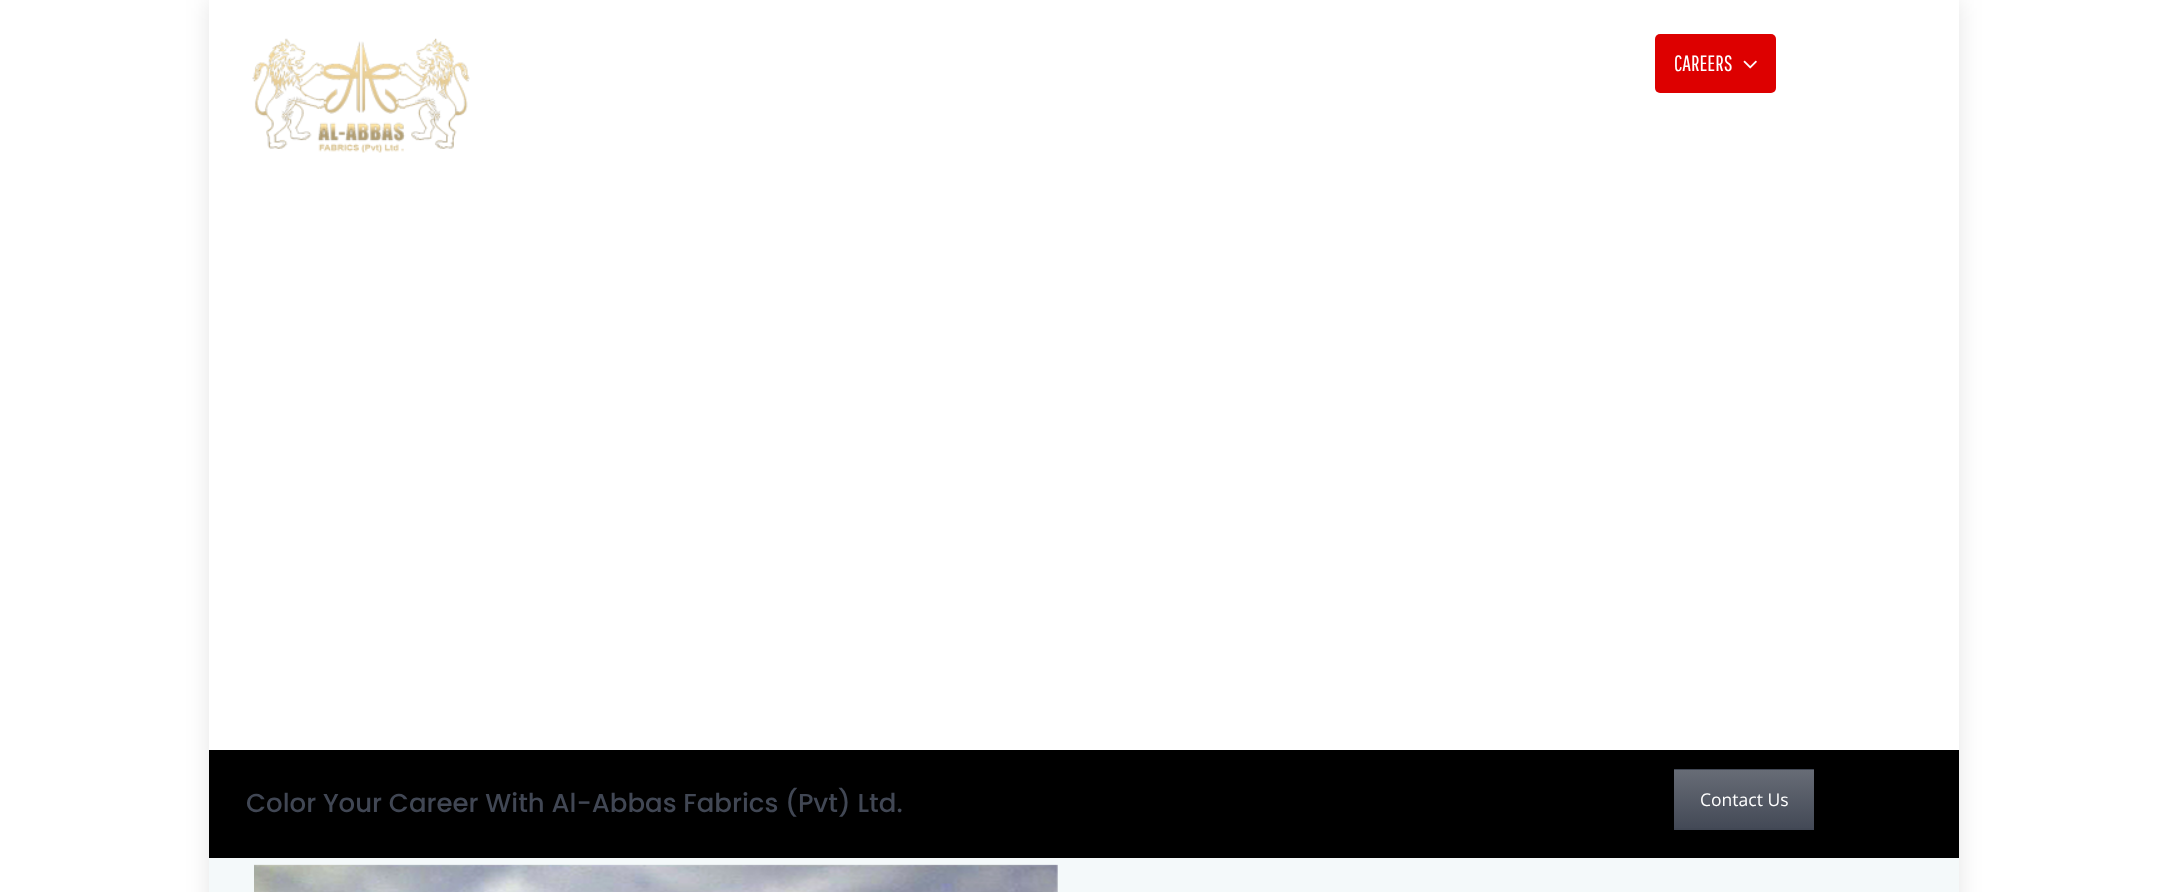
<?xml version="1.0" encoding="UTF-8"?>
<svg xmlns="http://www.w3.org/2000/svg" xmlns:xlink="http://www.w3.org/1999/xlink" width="2167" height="892">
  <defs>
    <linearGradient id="g1" gradientUnits="userSpaceOnUse" x1="1744" y1="770" x2="1744" y2="829"><stop offset="0" stop-color="#676c76" /><stop offset="1" stop-color="#434956" /></linearGradient>
  </defs>
  <rect width="100%" height="100%" fill="#ffffff" />
  <rect x="209" width="1750" height="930" fill="#000000" fill-opacity="0.1" filter="blur(12.5px)" />
  <rect x="209" width="1750" height="750" fill="#ffffff" />
  <image x="252" y="38" width="218" height="115" xlink:href="image1.png" />
  <rect x="1655" y="34" width="121" height="59" rx="5" fill="#dd0000" />
  <image x="1743" y="60" width="14" height="9" xlink:href="image2.png" />
  <rect x="209" y="750" width="1750" height="108" fill="#000000" />
  <rect x="1674" y="769" width="140" height="61" fill="#414754" />
  <rect x="1674" y="770" width="140" height="58" fill="url(#g1)" />
  <rect x="209" y="858" width="1750" height="34" fill="#f4f9fa" />
  <image x="254" y="864" width="804" height="28" xlink:href="image3.png" />
  <text x="1674" y="71" style="font-family: Pathway Gothic One; font-size: 22px; fill: #ffffff">CAREERS</text>
  <text x="246" y="812" style="font-family: Poppins; font-size: 26px; font-weight: 500; fill: #414754">Color Your Career With Al-Abbas Fabrics (Pvt) Ltd.</text>
  <text x="1700" y="806" style="font-family: Open Sans; font-size: 17.5px; fill: #ffffff">Contact Us</text>
</svg>
